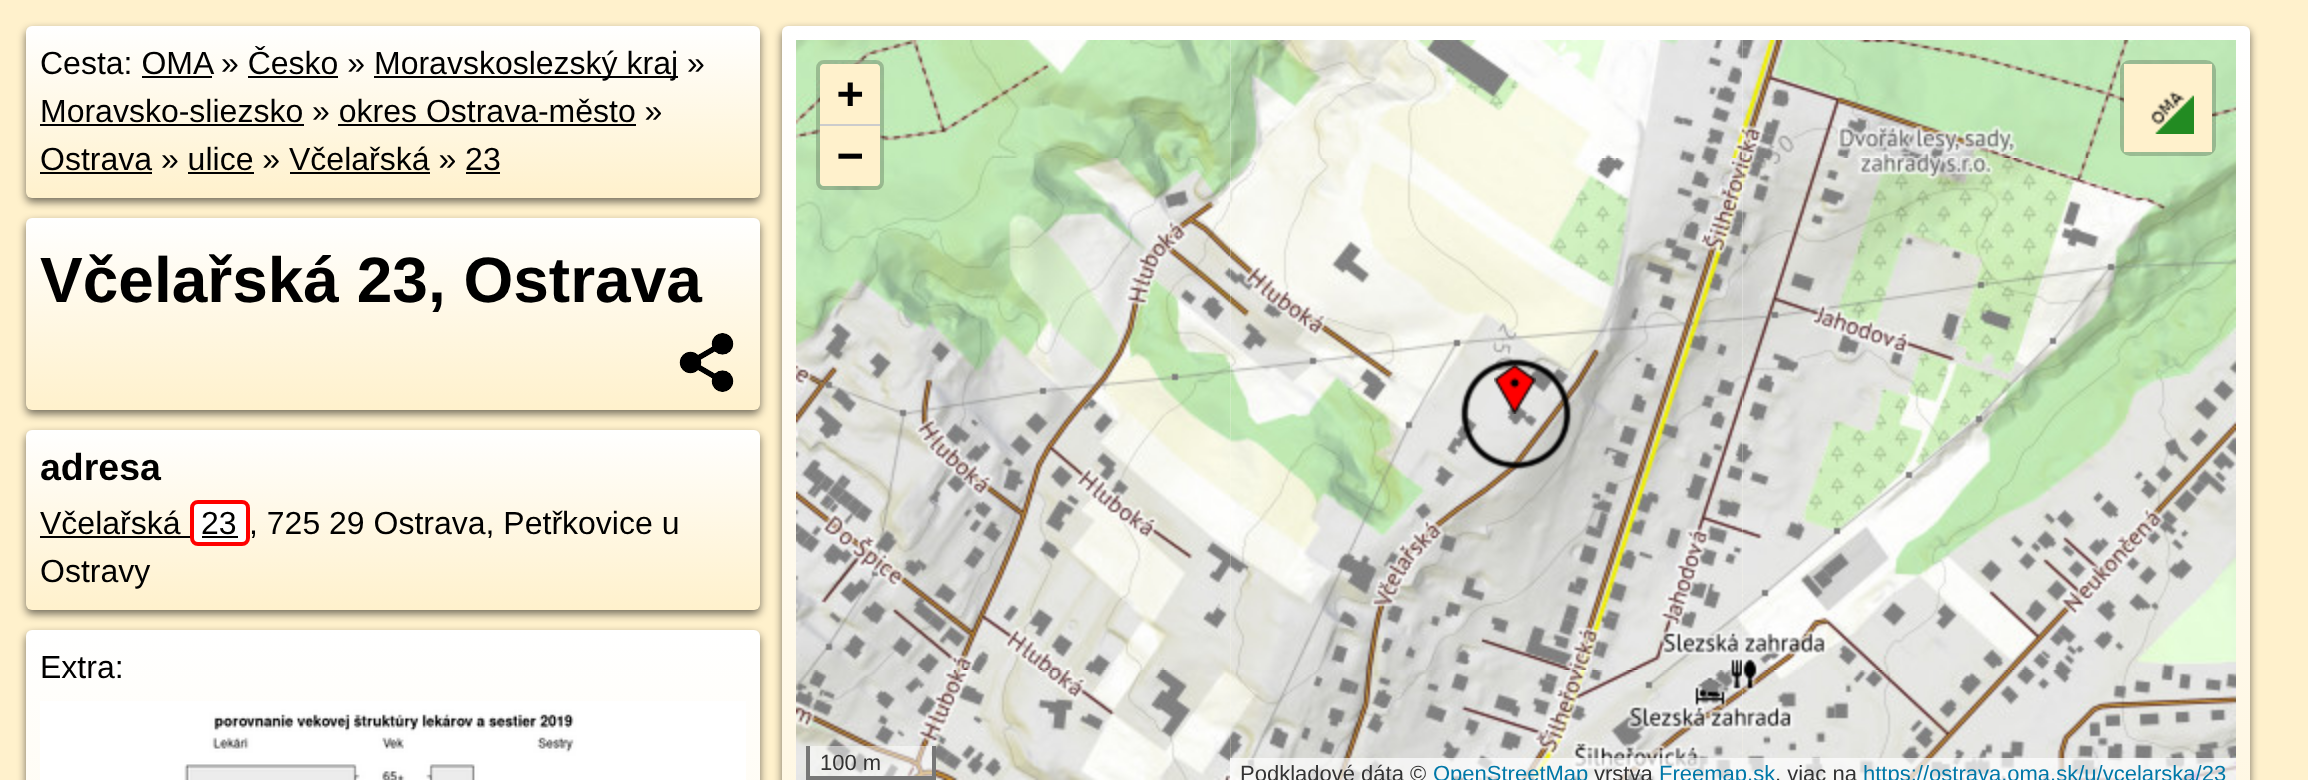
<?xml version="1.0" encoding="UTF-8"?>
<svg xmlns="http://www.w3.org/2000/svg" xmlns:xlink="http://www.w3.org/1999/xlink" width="2308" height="780">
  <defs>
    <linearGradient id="g1" gradientUnits="userSpaceOnUse" x1="393" y1="26" x2="393" y2="198"><stop offset="0" stop-color="#ffffff" /><stop offset="1" stop-color="#fff1cc" /></linearGradient>
    <linearGradient id="g2" gradientUnits="userSpaceOnUse" x1="393" y1="218" x2="393" y2="410"><stop offset="0" stop-color="#ffffff" /><stop offset="1" stop-color="#fff1cc" /></linearGradient>
    <linearGradient id="g3" gradientUnits="userSpaceOnUse" x1="393" y1="430" x2="393" y2="610"><stop offset="0" stop-color="#ffffff" /><stop offset="1" stop-color="#fff1cc" /></linearGradient>
    <linearGradient id="g4" gradientUnits="userSpaceOnUse" x1="393" y1="630" x2="393" y2="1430"><stop offset="0" stop-color="#ffffff" /><stop offset="1" stop-color="#fff1cc" /></linearGradient>
    <linearGradient id="g5" gradientUnits="userSpaceOnUse" x1="1516" y1="26" x2="1516" y2="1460"><stop offset="0" stop-color="#ffffff" /><stop offset="1" stop-color="#fff1cc" /></linearGradient>
  </defs>
  <rect width="100%" height="100%" fill="#fff1cc" />
  <rect x="26" y="30" width="734" height="172" rx="6" fill="#000000" fill-opacity="0.55" filter="blur(4px)" />
  <rect x="26" y="26" width="734" height="172" rx="6" fill="url(#g1)" />
  <rect x="374" y="76" width="304" height="2" fill="#000000" />
  <rect x="142" y="76" width="70" height="2" fill="#000000" />
  <rect x="248" y="76" width="90" height="2" fill="#000000" />
  <rect x="40" y="124" width="264" height="2" fill="#000000" />
  <rect x="338" y="124" width="298" height="2" fill="#000000" />
  <rect x="40" y="172" width="112" height="2" fill="#000000" />
  <rect x="188" y="172" width="66" height="2" fill="#000000" />
  <rect x="290" y="172" width="140" height="2" fill="#000000" />
  <rect x="466" y="172" width="34" height="2" fill="#000000" />
  <rect x="26" y="222" width="734" height="192" rx="6" fill="#000000" fill-opacity="0.55" filter="blur(4px)" />
  <rect x="26" y="218" width="734" height="192" rx="6" fill="url(#g2)" />
  <image x="679" y="333" width="55" height="59" xlink:href="image1.png" />
  <rect x="26" y="434" width="734" height="180" rx="6" fill="#000000" fill-opacity="0.55" filter="blur(4px)" />
  <rect x="26" y="430" width="734" height="180" rx="6" fill="url(#g3)" />
  <rect x="40" y="536" width="150" height="2" fill="#000000" />
  <rect x="192" y="502" width="56" height="42" rx="6" fill="#ffffff" stroke="#ff0000" stroke-width="4" />
  <rect x="202" y="536" width="36" height="2" fill="#000000" />
  <rect x="26" y="634" width="734" height="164" rx="6" fill="#000000" fill-opacity="0.55" filter="blur(4px)" />
  <rect x="26" y="630" width="734" height="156" rx="6" fill="url(#g4)" />
  <image x="40" y="701" width="706" height="79" xlink:href="image2.png" />
  <rect x="782" y="30" width="1468" height="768" rx="6" fill="#000000" fill-opacity="0.55" filter="blur(4px)" />
  <rect x="782" y="26" width="1468" height="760" rx="6" fill="url(#g5)" />
  <image x="796" y="40" width="434" height="118" xlink:href="image3.png" />
  <image x="1230" y="40" width="512" height="118" xlink:href="image4.png" />
  <image x="1741" y="40" width="495" height="118" xlink:href="image5.png" />
  <image x="796" y="158" width="434" height="512" xlink:href="image6.png" />
  <image x="1230" y="158" width="512" height="512" xlink:href="image7.png" />
  <image x="1741" y="158" width="495" height="512" xlink:href="image8.png" />
  <image x="796" y="670" width="434" height="110" xlink:href="image9.png" />
  <image x="1230" y="670" width="512" height="110" xlink:href="image10.png" />
  <image x="1741" y="670" width="495" height="110" xlink:href="image11.png" />
  <image x="1459" y="357" width="114" height="114" xlink:href="image12.png" />
  <image x="1494" y="364" width="42" height="50" xlink:href="image13.png" />
  <rect x="818" y="62" width="64" height="126" rx="6" fill="none" stroke="#000000" stroke-opacity="0.2" stroke-width="4" />
  <path d="M 824 64 h 52 c 2 0 4 2 4 4 v 58 h -60 v -58 c 0 -2 2 -4 4 -4 z" fill="#fff1cc" />
  <rect x="820" y="124" width="60" height="2" fill="#cccccc" />
  <path d="M 820 126 h 60 v 56 c 0 2 -2 4 -4 4 h -52 c -2 0 -4 -2 -4 -4 z" fill="#fff1cc" />
  <rect x="2122" y="62" width="92" height="92" rx="8" fill="none" stroke="#000000" stroke-opacity="0.2" stroke-width="4" />
  <rect x="2124" y="64" width="88" height="88" fill="#fff1cc" />
  <image x="2151" y="91" width="43" height="43" xlink:href="image14.png" />
  <rect x="810" y="746" width="122" height="30" fill="#ffffff" fill-opacity="0.5" />
  <rect x="932" y="746" width="4" height="34" fill="#777777" />
  <rect x="806" y="776" width="130" height="4" fill="#777777" />
  <rect x="806" y="746" width="4" height="34" fill="#777777" />
  <rect x="1230" y="758" width="1006" height="22" fill="#ffffff" fill-opacity="0.7" />
  <text x="40" y="74" style="font-family: Liberation Sans; font-size: 32px; fill: #000000">Cesta: OMA</text>
  <text x="221" y="74" style="font-family: Liberation Sans; font-size: 32px; fill: #000000">» Česko »</text>
  <text x="374" y="74" style="font-family: Liberation Sans; font-size: 32px; fill: #000000">Moravskoslezský kraj »</text>
  <text x="40" y="122" style="font-family: Liberation Sans; font-size: 32px; fill: #000000">Moravsko-sliezsko » okres Ostrava-město »</text>
  <text x="40" y="170" style="font-family: Liberation Sans; font-size: 32px; fill: #000000">Ostrava » ulice » Včelařská » 23</text>
  <text x="40" y="302" style="font-family: Liberation Sans; font-size: 64px; font-weight: bold; fill: #000000">Včelařská 23, Ostrava</text>
  <text x="40" y="480" style="font-family: Liberation Sans; font-size: 37.5px; font-weight: bold; fill: #000000">adresa</text>
  <text x="40" y="534" style="font-family: Liberation Sans; font-size: 32px; fill: #000000">Včelařská</text>
  <text x="201" y="534" style="font-family: Liberation Sans; font-size: 32px; fill: #000000">23</text>
  <text x="249" y="534" style="font-family: Liberation Sans; font-size: 32px; fill: #000000">, 725 29 Ostrava, Petřkovice u</text>
  <text x="40" y="582" style="font-family: Liberation Sans; font-size: 32px; fill: #000000">Ostravy</text>
  <text x="40" y="678" style="font-family: Liberation Sans; font-size: 32px; fill: #000000">Extra:</text>
  <text x="837" y="108" style="font-family: DejaVu Sans Mono; font-size: 44px; font-weight: bold; fill: #000000">+</text>
  <text x="837" y="170" style="font-family: DejaVu Sans Mono; font-size: 44px; font-weight: bold; fill: #000000">−</text>
  <text x="820" y="770" style="font-family: Liberation Sans; font-size: 22px; fill: #333333">100 m</text>
  <text x="1240" y="781" style="font-family: Liberation Sans; font-size: 22px; fill: #333333">Podkladové dáta ©</text>
  <text x="1433" y="781" style="font-family: Liberation Sans; font-size: 22px; fill: #0078a8">OpenStreetMap</text>
  <text x="1594" y="781" style="font-family: Liberation Sans; font-size: 22px; fill: #333333">vrstva</text>
  <text x="1659" y="781" style="font-family: Liberation Sans; font-size: 22px; fill: #0078a8">Freemap.sk</text>
  <text x="1775" y="781" style="font-family: Liberation Sans; font-size: 22px; fill: #333333">, viac na</text>
  <text x="1863" y="781" style="font-family: Liberation Sans; font-size: 22px; fill: #0078a8">https://ostrava.oma.sk/u/vcelarska/23</text>
</svg>
